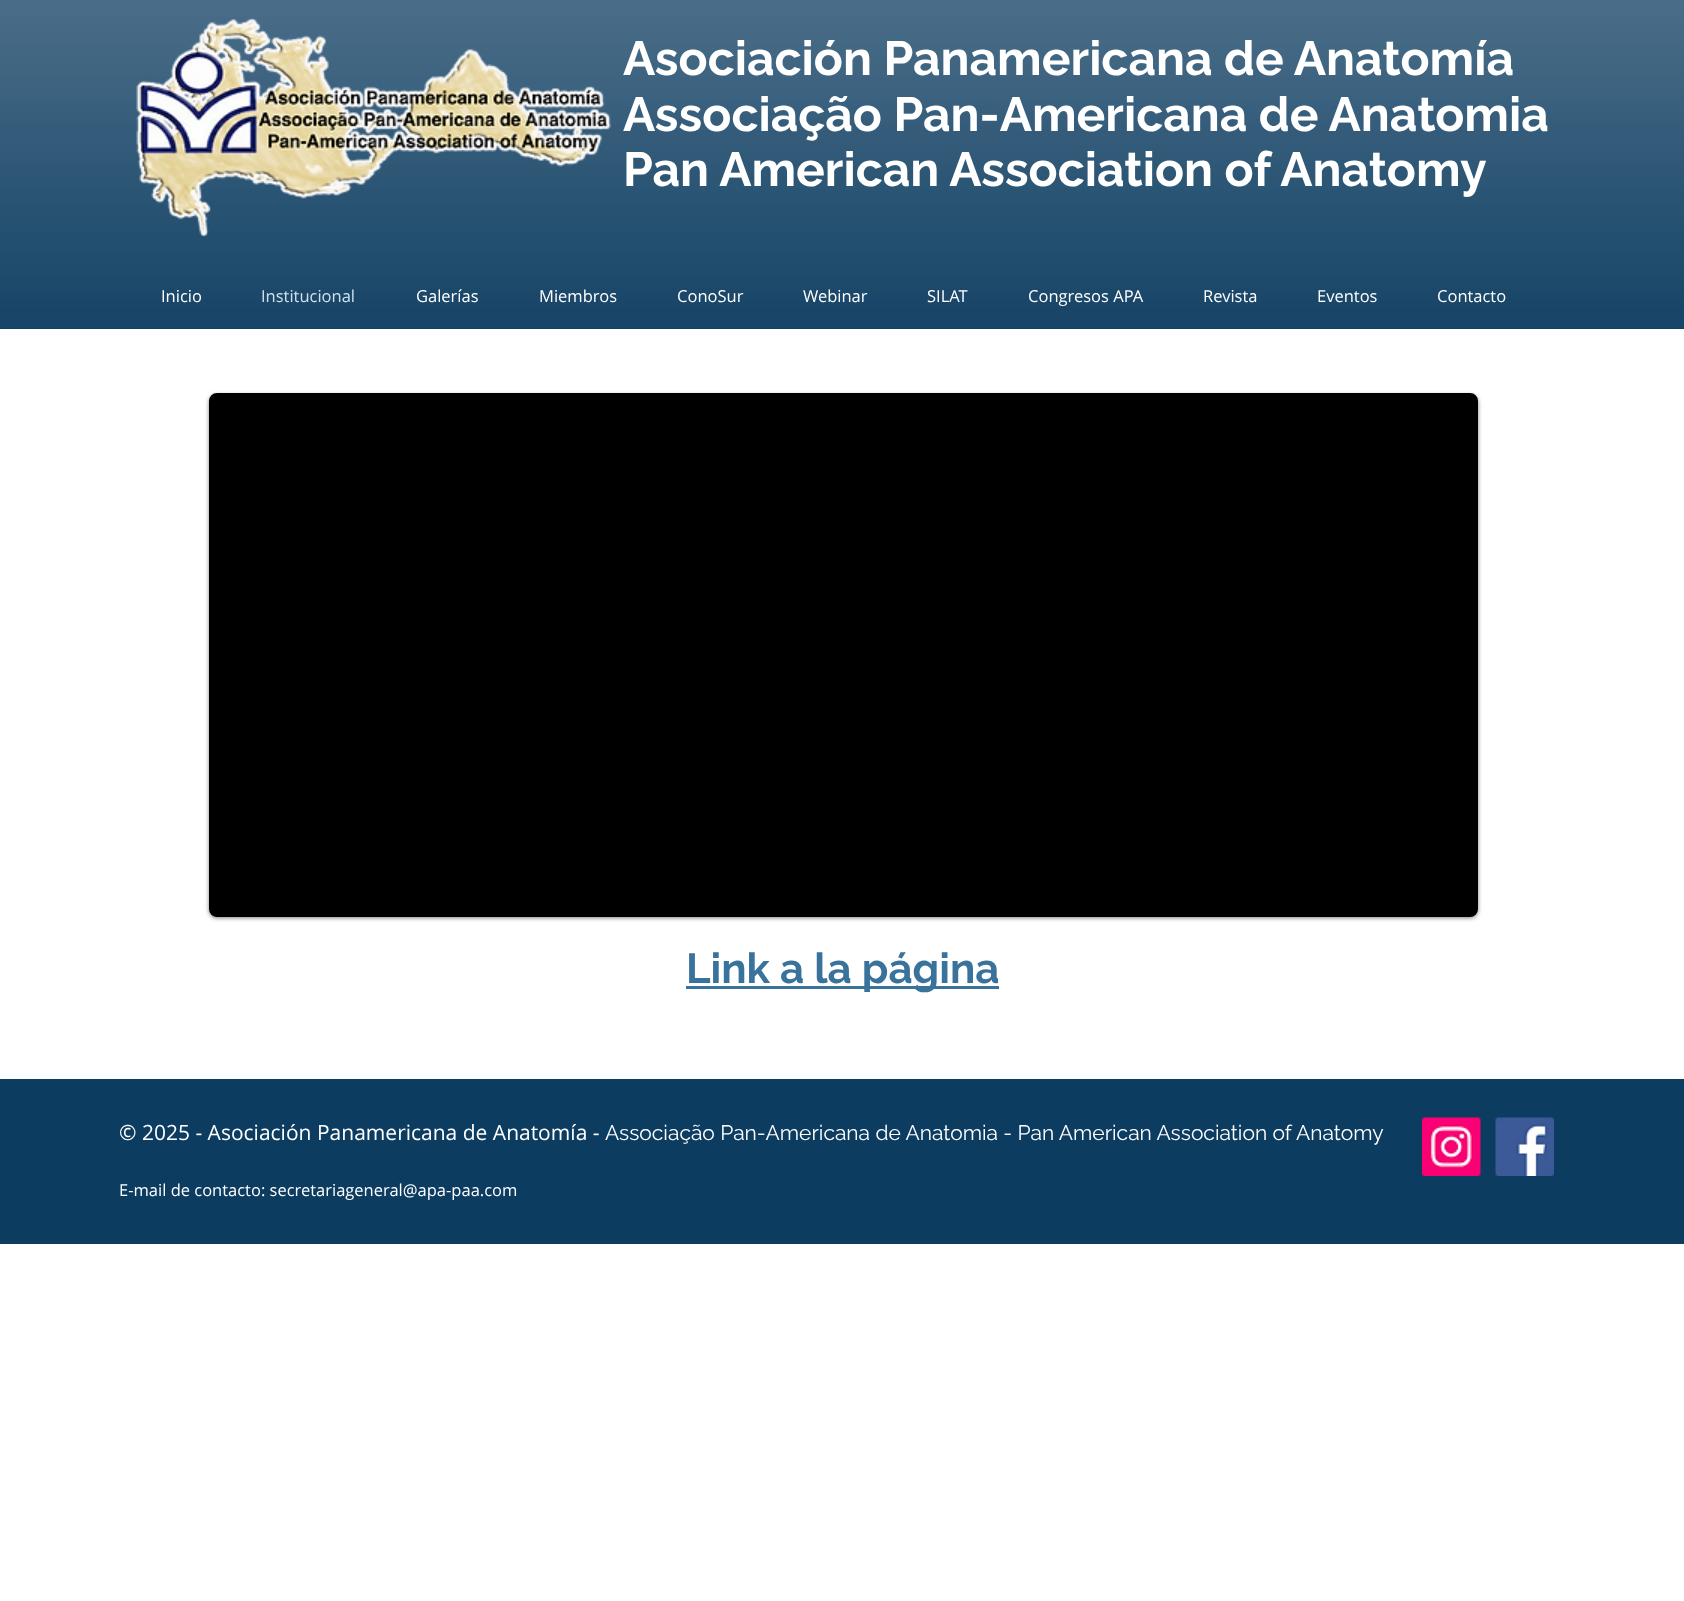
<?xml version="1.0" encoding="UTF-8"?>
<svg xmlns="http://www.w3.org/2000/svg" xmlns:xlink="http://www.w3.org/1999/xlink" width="1684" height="1601">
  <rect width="100%" height="100%" fill="#ffffff" />
  <rect width="1684" height="329" fill="#0c3c60" />
  <image x="0" y="0" width="1684" height="329" xlink:href="image1.png" />
  <image x="136" y="18" width="475" height="219" xlink:href="image2.png" />
  <rect x="209" y="395" width="1269" height="523" rx="8" fill="#000000" fill-opacity="0.5" filter="blur(2px)" />
  <rect x="210" y="394" width="1267" height="522" rx="7" fill="#000000" stroke="#000000" stroke-width="2" />
  <rect x="686" y="986" width="313" height="3" fill="#39729b" />
  <rect y="1079" width="1684" height="165" fill="#0c3c60" />
  <image x="1422" y="1117" width="59" height="59" xlink:href="image3.png" />
  <image x="1495" y="1117" width="59" height="59" xlink:href="image4.png" />
  <text x="623" y="75" style="font-family: Raleway; font-size: 48px; font-weight: bold; fill: #ffffff">Asociación Panamericana de Anatomía</text>
  <text x="623" y="131" style="font-family: Raleway; font-size: 48px; font-weight: bold; fill: #ffffff">Associação Pan-Americana de Anatomia</text>
  <text x="623" y="186" style="font-family: Raleway; font-size: 48px; font-weight: bold; fill: #ffffff">Pan American Association of Anatomy</text>
  <text x="161" y="302" style="font-family: Open Sans; font-size: 16.5px; fill: #ffffff">Inicio</text>
  <text x="261" y="302" style="font-family: Open Sans; font-size: 16.5px; fill: #d1e0eb">Institucional</text>
  <text x="416" y="302" style="font-family: Open Sans; font-size: 16.5px; fill: #ffffff">Galerías</text>
  <text x="539" y="302" style="font-family: Open Sans; font-size: 16.5px; fill: #ffffff">Miembros</text>
  <text x="677" y="302" style="font-family: Open Sans; font-size: 16.5px; fill: #ffffff">ConoSur</text>
  <text x="803" y="302" style="font-family: Open Sans; font-size: 16.5px; fill: #ffffff">Webinar</text>
  <text x="927" y="302" style="font-family: Open Sans; font-size: 16.5px; fill: #ffffff">SILAT</text>
  <text x="1028" y="302" style="font-family: Open Sans; font-size: 16.5px; fill: #ffffff">Congresos APA</text>
  <text x="1203" y="302" style="font-family: Open Sans; font-size: 16.5px; fill: #ffffff">Revista</text>
  <text x="1317" y="302" style="font-family: Open Sans; font-size: 16.5px; fill: #ffffff">Eventos</text>
  <text x="1437" y="302" style="font-family: Open Sans; font-size: 16.5px; fill: #ffffff">Contacto</text>
  <text x="686" y="983" style="font-family: Raleway; font-size: 42px; font-weight: bold; fill: #39729b">Link a la página</text>
  <text x="119" y="1140" style="font-family: Open Sans; font-size: 21px; fill: #ffffff">© 2025 - Asociación Panamericana de Anatomía -</text>
  <text x="605" y="1140" style="font-family: Raleway; font-size: 21px; fill: #ffffff">Associação Pan-Americana de Anatomia - Pan American Association of Anatomy</text>
  <text x="119" y="1196" style="font-family: Open Sans; font-size: 16.5px; fill: #ffffff">E-mail de contacto: secretariageneral@apa-paa.com</text>
</svg>
